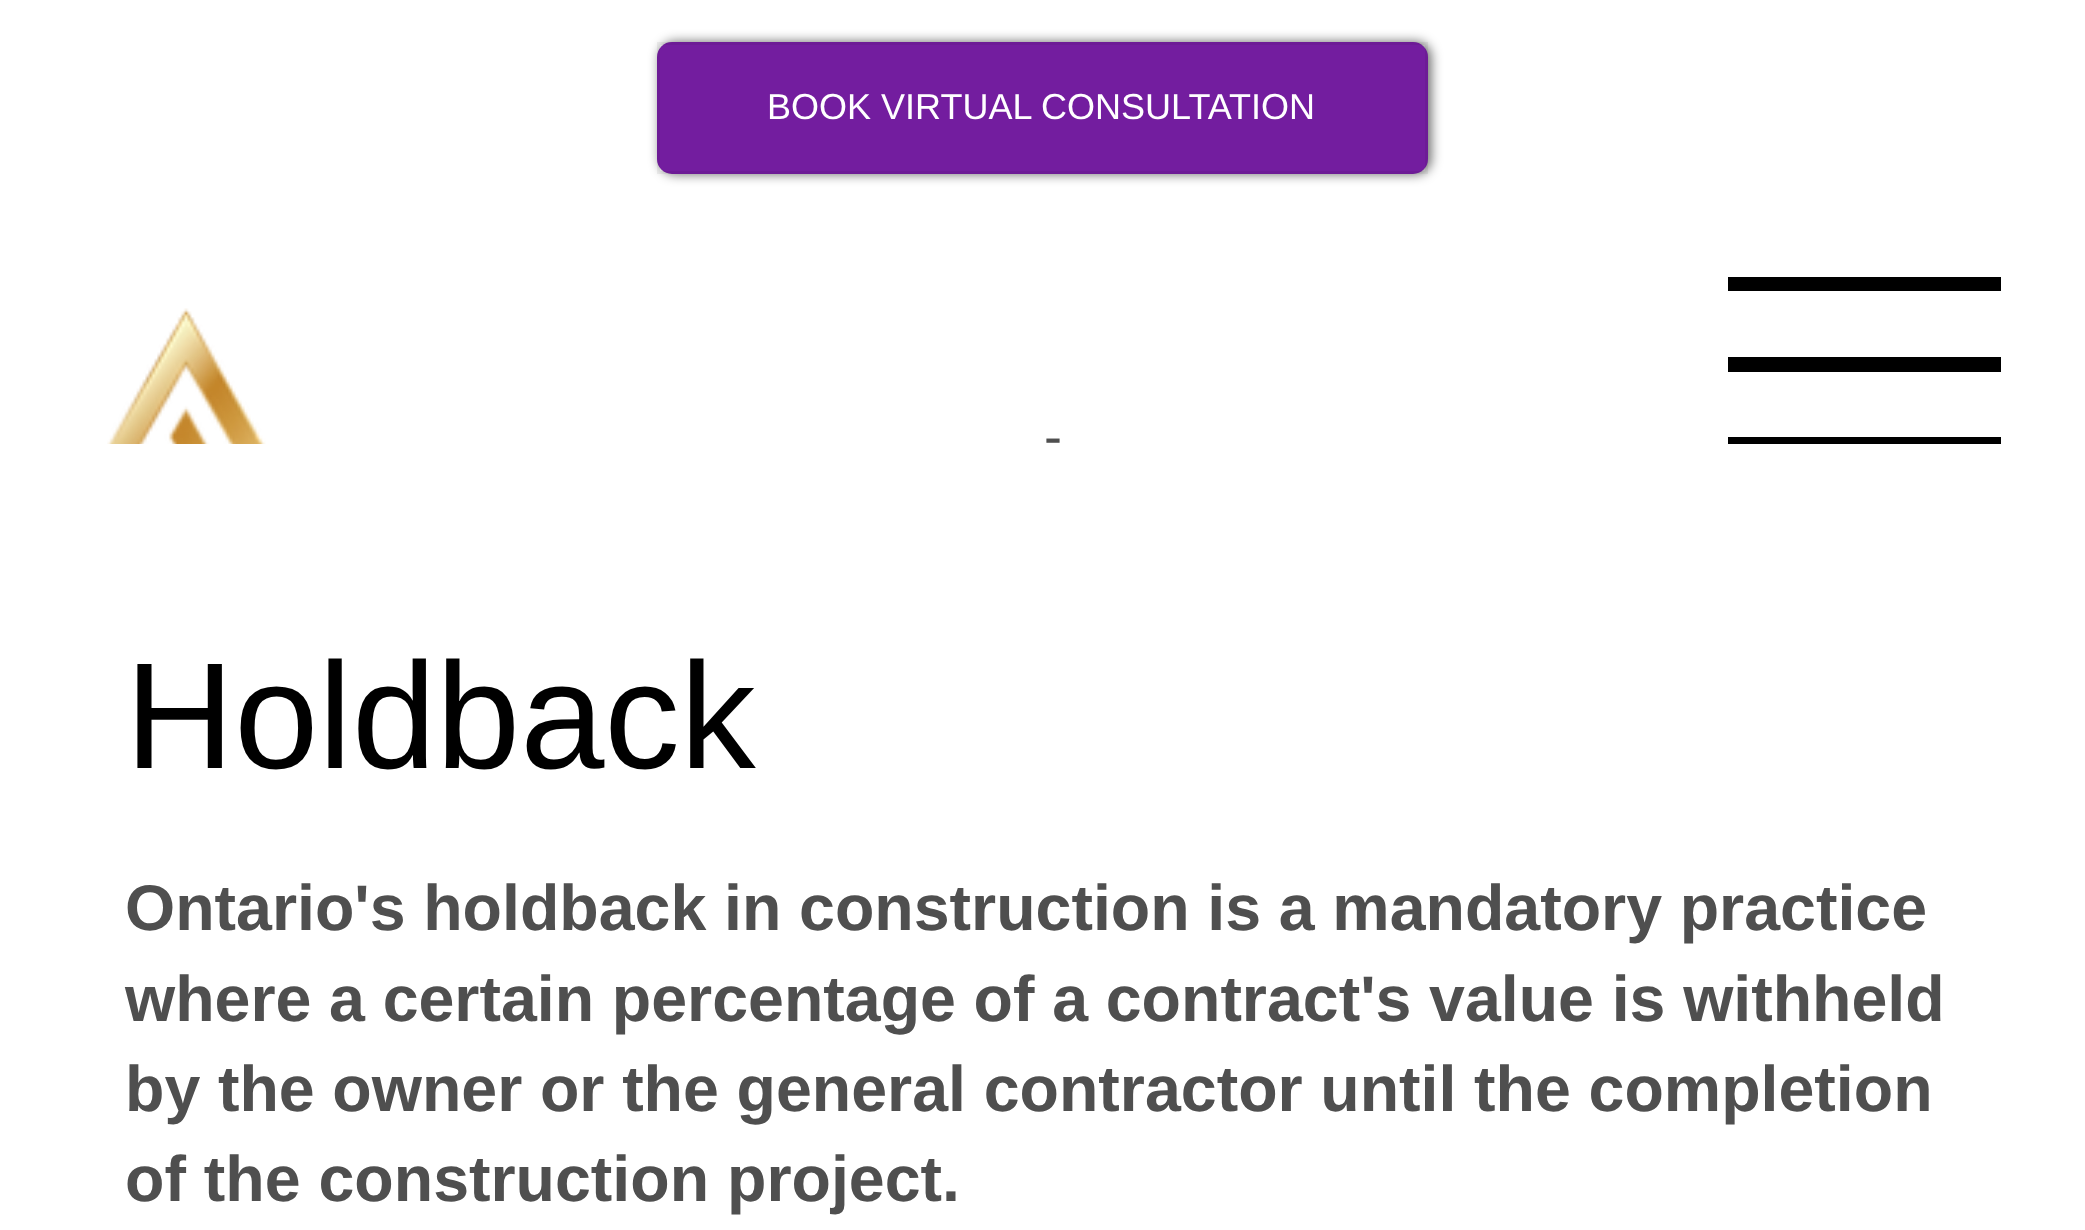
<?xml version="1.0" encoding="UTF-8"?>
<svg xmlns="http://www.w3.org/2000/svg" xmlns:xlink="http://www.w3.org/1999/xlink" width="2085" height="1230">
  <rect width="100%" height="100%" fill="#ffffff" />
  <rect x="660" y="42" width="771" height="132" rx="15" fill="#000000" fill-opacity="0.6" filter="blur(6px)" />
  <rect x="657" y="42" width="771" height="132" rx="15" fill="#731d9f" />
  <rect x="658.5" y="43.5" width="768" height="129" fill="none" stroke="#000000" stroke-opacity="0.05" stroke-width="3" />
  <image x="107" y="308" width="159" height="136" xlink:href="image1.png" />
  <rect x="1728" y="277" width="273" height="14" fill="#000000" />
  <rect x="1728" y="357" width="273" height="15" fill="#000000" />
  <rect x="1728" y="437" width="273" height="7" fill="#000000" />
  <text x="767" y="119" style="font-family: Liberation Sans; font-size: 36px; fill: #ffffff">BOOK VIRTUAL CONSULTATION</text>
  <text x="1044" y="455" style="font-family: Liberation Sans; font-size: 54px; fill: #4f4f4f">-</text>
  <text x="125" y="768" style="font-family: Liberation Sans; font-size: 151.25px; fill: #000000">Holdback</text>
  <text x="125" y="930" word-spacing="-0.25" style="font-family: Liberation Sans; font-size: 64.5px; font-weight: bold; fill: #4f4f4f">Ontario's holdback in construction is a mandatory practice</text>
  <text x="125" y="1021" word-spacing="-0.25" style="font-family: Liberation Sans; font-size: 64.5px; font-weight: bold; fill: #4f4f4f">where a certain percentage of a contract's value is withheld</text>
  <text x="125" y="1111" word-spacing="-0.25" style="font-family: Liberation Sans; font-size: 64.5px; font-weight: bold; fill: #4f4f4f">by the owner or the general contractor until the completion</text>
  <text x="125" y="1201" style="font-family: Liberation Sans; font-size: 64.5px; font-weight: bold; fill: #4f4f4f">of the construction project.</text>
</svg>
